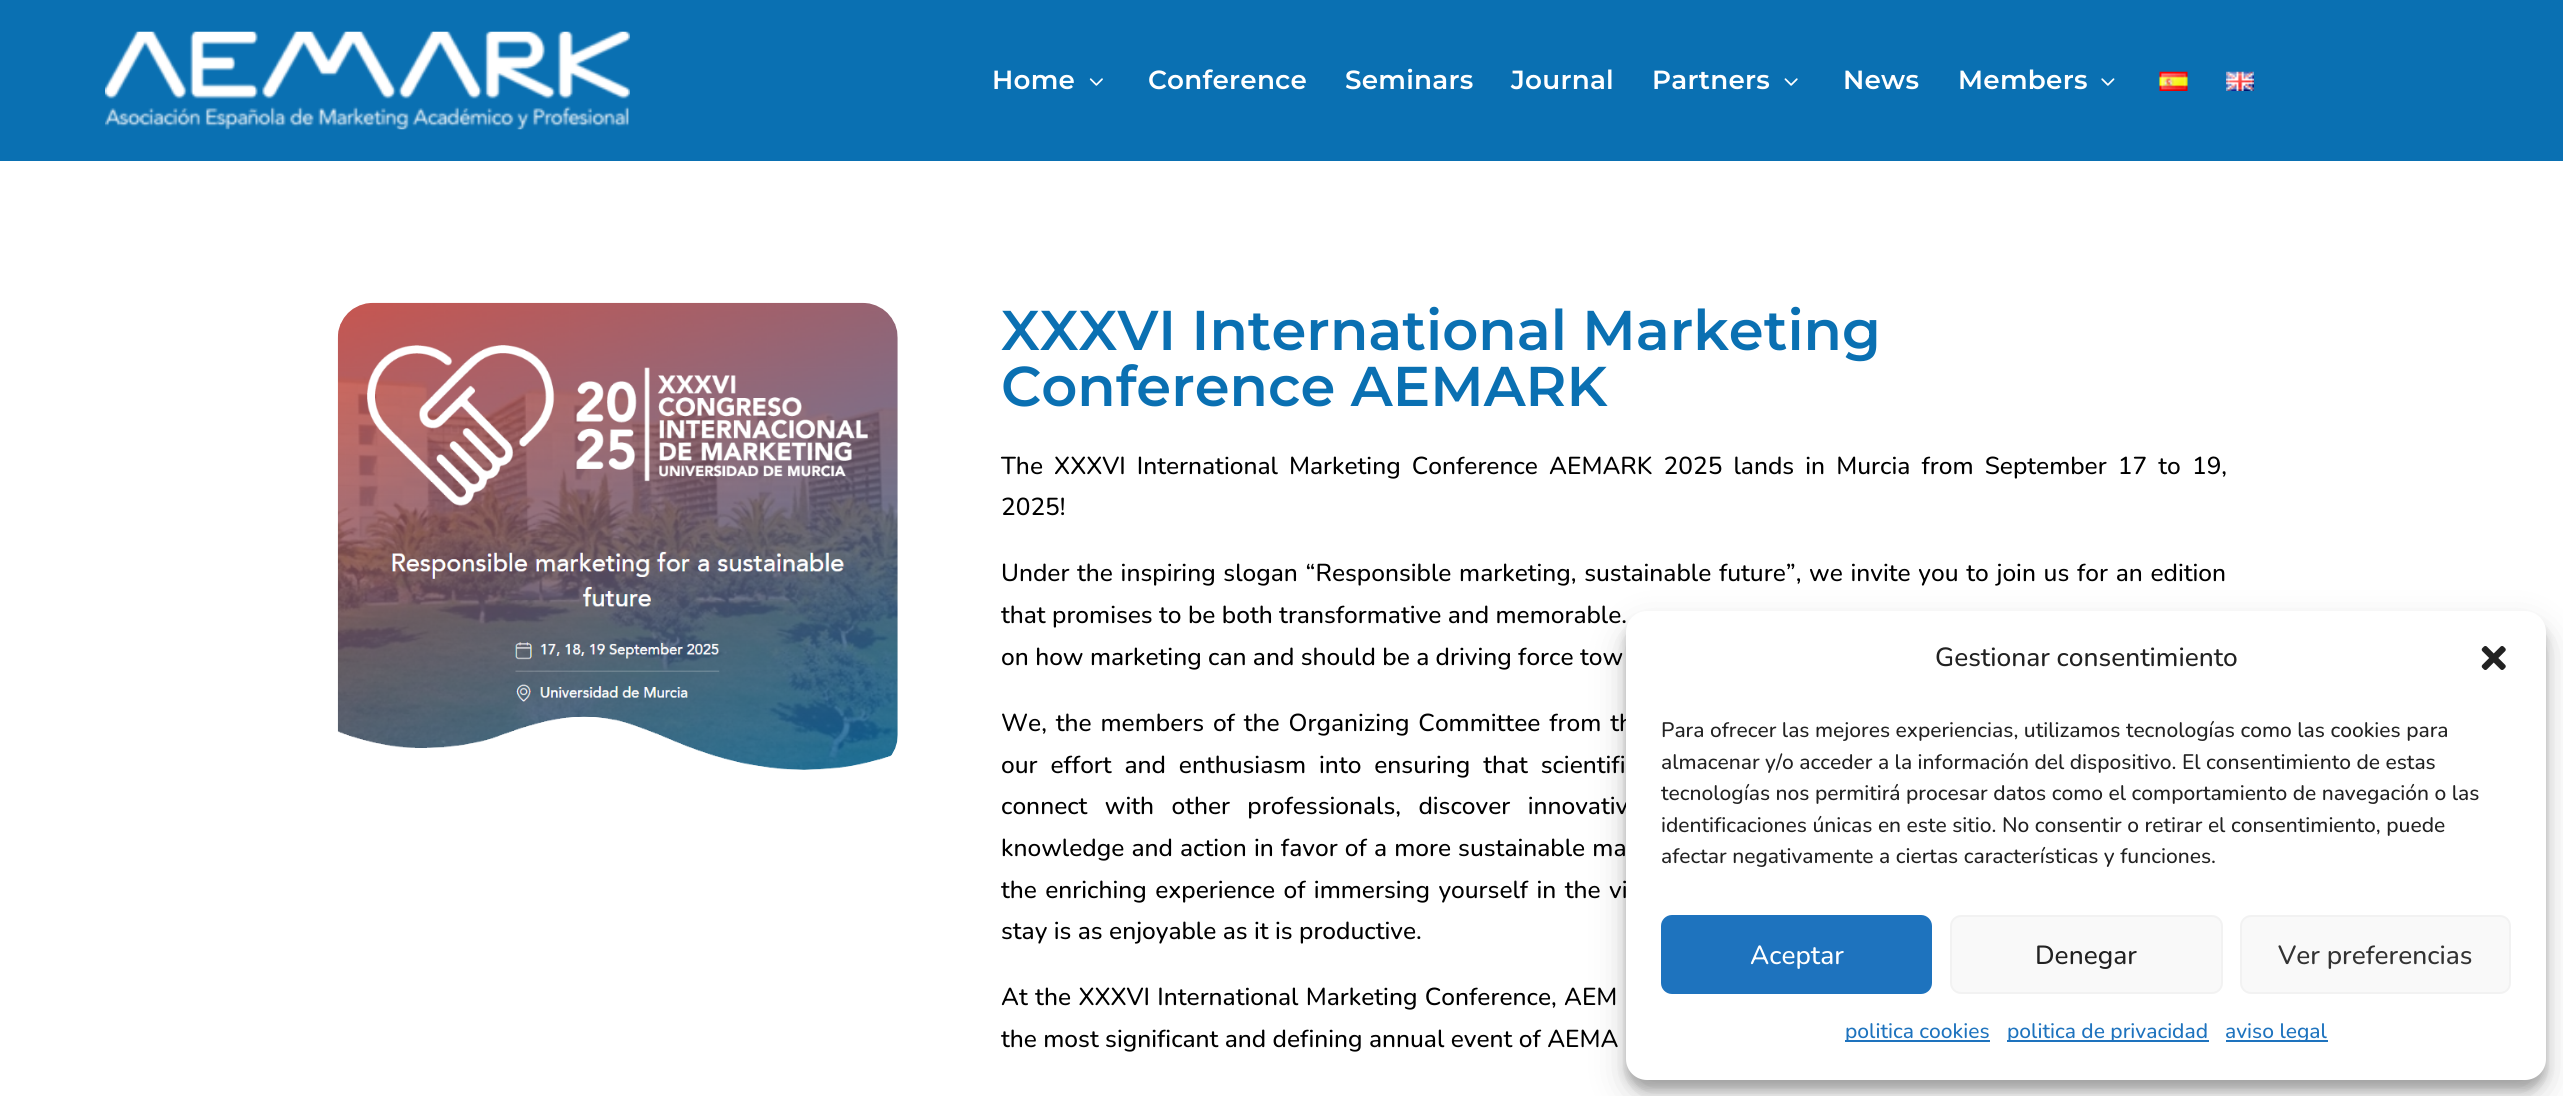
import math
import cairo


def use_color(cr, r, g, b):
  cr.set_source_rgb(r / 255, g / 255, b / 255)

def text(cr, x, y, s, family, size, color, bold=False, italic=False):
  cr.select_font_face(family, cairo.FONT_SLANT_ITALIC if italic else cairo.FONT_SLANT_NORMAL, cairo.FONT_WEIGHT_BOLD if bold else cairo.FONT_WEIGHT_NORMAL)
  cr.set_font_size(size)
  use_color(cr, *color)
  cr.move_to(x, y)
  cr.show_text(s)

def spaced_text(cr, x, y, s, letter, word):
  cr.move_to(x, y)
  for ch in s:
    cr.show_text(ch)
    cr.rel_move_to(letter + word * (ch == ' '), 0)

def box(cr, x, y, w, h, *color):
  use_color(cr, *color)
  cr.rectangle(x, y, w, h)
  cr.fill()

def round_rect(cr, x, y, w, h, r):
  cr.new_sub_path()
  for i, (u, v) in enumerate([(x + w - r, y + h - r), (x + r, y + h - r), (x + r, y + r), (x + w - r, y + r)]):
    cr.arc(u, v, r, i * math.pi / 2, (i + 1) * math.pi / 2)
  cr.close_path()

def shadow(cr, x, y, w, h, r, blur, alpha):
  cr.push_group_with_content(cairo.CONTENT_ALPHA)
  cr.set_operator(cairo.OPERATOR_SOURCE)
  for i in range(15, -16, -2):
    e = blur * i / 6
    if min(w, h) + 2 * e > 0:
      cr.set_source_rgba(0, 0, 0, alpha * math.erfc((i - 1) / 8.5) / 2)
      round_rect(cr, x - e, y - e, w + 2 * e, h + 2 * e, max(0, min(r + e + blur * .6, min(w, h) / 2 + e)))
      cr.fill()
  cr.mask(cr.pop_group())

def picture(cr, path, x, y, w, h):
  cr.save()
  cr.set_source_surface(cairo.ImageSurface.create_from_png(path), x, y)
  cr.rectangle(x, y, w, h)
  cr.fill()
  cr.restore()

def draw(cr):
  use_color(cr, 255, 255, 255)
  cr.paint()
  box(cr, 0, 0, 2563, 161, 10, 112, 178)
  picture(cr, "img_01.png", 105, 31, 525, 99)
  picture(cr, "img_02.png", 1089, 78, 14, 8)
  picture(cr, "img_03.png", 1784, 78, 14, 8)
  picture(cr, "img_04.png", 2101, 78, 14, 8)
  picture(cr, "img_05.png", 2159, 71, 29, 20)
  picture(cr, "img_06.png", 2226, 71, 28, 20)
  picture(cr, "img_07.png", 337, 302, 561, 468)
  use_color(cr, 0, 0, 0)
  shadow(cr, 1626, 621, 920, 469, 21, 5, 0.23)
  shadow(cr, 1626, 628, 920, 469, 21, 17.5, 0.19)
  cr.select_font_face("Montserrat SemiBold")
  cr.set_font_size(26.25)
  use_color(cr, 255, 255, 255)
  spaced_text(cr, 992, 89, "Home", 0.25, 0)
  spaced_text(cr, 1148, 89, "Conference", 0.25, 0)
  spaced_text(cr, 1345, 89, "Seminars", 0.25, 0)
  spaced_text(cr, 1511, 89, "Journal", 0.25, 0)
  spaced_text(cr, 1652, 89, "Partners", 0.25, 0)
  spaced_text(cr, 1843, 89, "News", 0.25, 0)
  spaced_text(cr, 1958, 89, "Members", 0.25, 0)
  text(cr, 1001, 350, "XXXVI International Marketing", "Montserrat SemiBold", 56, (10, 112, 178))
  text(cr, 1001, 406, "Conference AEMARK", "Montserrat SemiBold", 56, (10, 112, 178))
  cr.select_font_face("Nunito Medium")
  cr.set_font_size(24.5)
  use_color(cr, 0, 0, 0)
  spaced_text(cr, 1001, 474, "The XXXVI International Marketing Conference AEMARK 2025 lands in Murcia from September 17 to 19,", 0, 4.75)
  text(cr, 1001, 515, "2025!", "Nunito Medium", 24.5, (0, 0, 0))
  spaced_text(cr, 1001, 581, "Under the inspiring slogan “Responsible marketing, sustainable future”, we invite you to join us for an edition", 0, 1.3)
  text(cr, 1001, 623, "that promises to be both transformative and memorable.", "Nunito Medium", 24.5, (0, 0, 0))
  text(cr, 1001, 665, "on how marketing can and should be a driving force tow", "Nunito Medium", 24.5, (0, 0, 0))
  spaced_text(cr, 1001, 731, "We, the members of the Organizing Committee from th", 0, 2.5)
  spaced_text(cr, 1001, 773, "our effort and enthusiasm into ensuring that scientifi", 0, 6.5)
  spaced_text(cr, 1001, 814, "connect with other professionals, discover innovativ", 0, 11)
  spaced_text(cr, 1001, 856, "knowledge and action in favor of a more sustainable ma", 0, 0.75)
  spaced_text(cr, 1001, 898, "the enriching experience of immersing yourself in the vi", 0, 2)
  text(cr, 1001, 939, "stay is as enjoyable as it is productive.", "Nunito Medium", 24.5, (0, 0, 0))
  spaced_text(cr, 1001, 1005, "At the XXXVI International Marketing Conference, AEM", 0, 1)
  text(cr, 1001, 1047, "the most significant and defining annual event of AEMA", "Nunito Medium", 24.5, (0, 0, 0))
  use_color(cr, 255, 255, 255)
  round_rect(cr, 1626, 611, 920, 469, 21)
  cr.fill()
  text(cr, 1935, 666, "Gestionar consentimiento", "Nunito Medium", 26.25, (34, 34, 34))
  picture(cr, "img_08.png", 2481, 646, 25, 24)
  text(cr, 1661, 737, "Para ofrecer las mejores experiencias, utilizamos tecnologías como las cookies para", "Nunito Medium", 21, (34, 34, 34))
  text(cr, 1661, 769, "almacenar y/o acceder a la información del dispositivo. El consentimiento de estas", "Nunito Medium", 21, (34, 34, 34))
  text(cr, 1661, 800, "tecnologías nos permitirá procesar datos como el comportamiento de navegación o las", "Nunito Medium", 21, (34, 34, 34))
  text(cr, 1661, 832, "identificaciones únicas en este sitio. No consentir o retirar el consentimiento, puede", "Nunito Medium", 21, (34, 34, 34))
  text(cr, 1661, 863, "afectar negativamente a ciertas características y funciones.", "Nunito Medium", 21, (34, 34, 34))
  use_color(cr, 30, 115, 190)
  round_rect(cr, 1662, 916, 269, 77, 10)
  cr.fill_preserve()
  cr.stroke()
  text(cr, 1750, 964, "Aceptar", "Nunito Medium", 26.25, (255, 255, 255))
  use_color(cr, 249, 249, 249)
  round_rect(cr, 1951, 916, 271, 77, 10)
  cr.fill_preserve()
  use_color(cr, 242, 242, 242)
  cr.stroke()
  text(cr, 2035, 964, "Denegar", "Nunito Medium", 26.25, (34, 34, 34))
  use_color(cr, 249, 249, 249)
  round_rect(cr, 2241, 916, 269, 77, 10)
  cr.fill_preserve()
  use_color(cr, 242, 242, 242)
  cr.stroke()
  text(cr, 2278, 964, "Ver preferencias", "Nunito Medium", 26.25, (51, 51, 51))
  box(cr, 1845, 1040, 145, 2, 30, 115, 190)
  text(cr, 1845, 1038, "politica cookies", "Nunito Medium", 21, (30, 115, 190))
  box(cr, 2007, 1040, 202, 2, 30, 115, 190)
  text(cr, 2007, 1038, "politica de privacidad", "Nunito Medium", 21, (30, 115, 190))
  box(cr, 2226, 1040, 102, 2, 30, 115, 190)
  text(cr, 2225, 1038, "aviso legal", "Nunito Medium", 21, (30, 115, 190))


surface = cairo.ImageSurface(cairo.FORMAT_RGB24, 2563, 1096)
cr = cairo.Context(surface)
options = cairo.FontOptions()
options.set_hint_metrics(cairo.HINT_METRICS_OFF)
options.set_hint_style(cairo.HINT_STYLE_NONE)
cr.set_font_options(options)
cr.set_miter_limit(4)
draw(cr)
surface.write_to_png("out.png")
